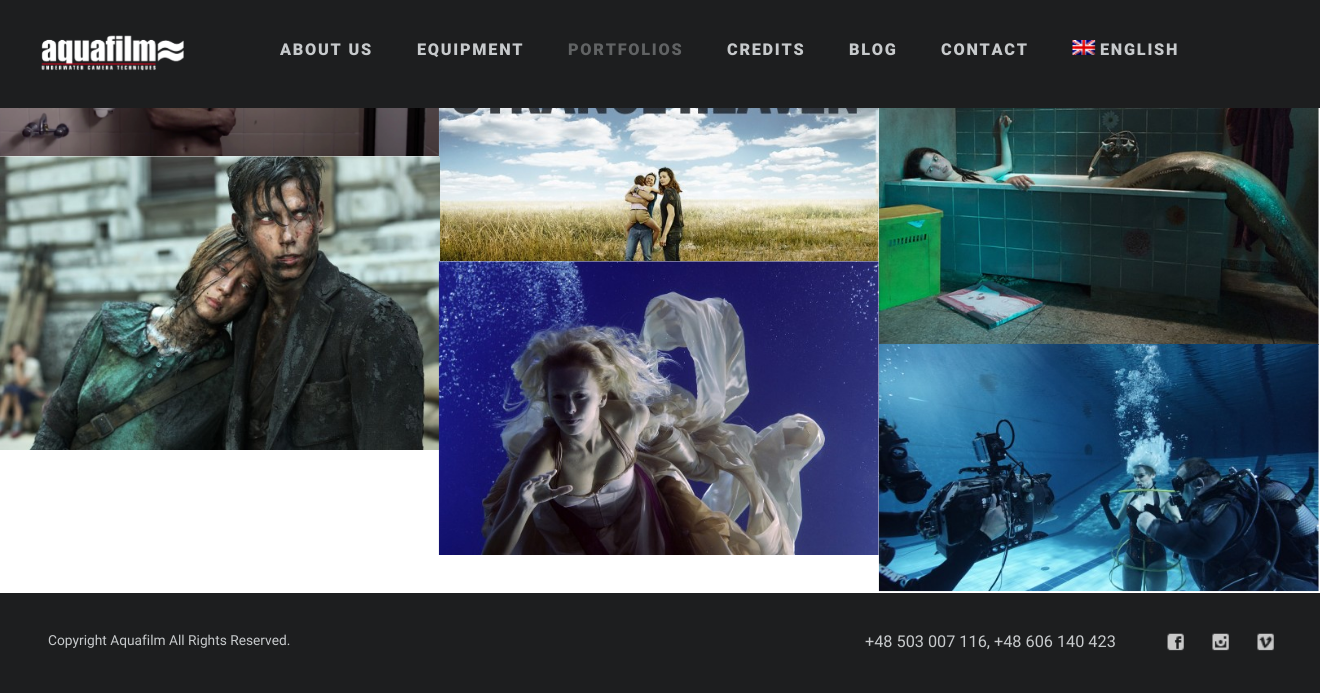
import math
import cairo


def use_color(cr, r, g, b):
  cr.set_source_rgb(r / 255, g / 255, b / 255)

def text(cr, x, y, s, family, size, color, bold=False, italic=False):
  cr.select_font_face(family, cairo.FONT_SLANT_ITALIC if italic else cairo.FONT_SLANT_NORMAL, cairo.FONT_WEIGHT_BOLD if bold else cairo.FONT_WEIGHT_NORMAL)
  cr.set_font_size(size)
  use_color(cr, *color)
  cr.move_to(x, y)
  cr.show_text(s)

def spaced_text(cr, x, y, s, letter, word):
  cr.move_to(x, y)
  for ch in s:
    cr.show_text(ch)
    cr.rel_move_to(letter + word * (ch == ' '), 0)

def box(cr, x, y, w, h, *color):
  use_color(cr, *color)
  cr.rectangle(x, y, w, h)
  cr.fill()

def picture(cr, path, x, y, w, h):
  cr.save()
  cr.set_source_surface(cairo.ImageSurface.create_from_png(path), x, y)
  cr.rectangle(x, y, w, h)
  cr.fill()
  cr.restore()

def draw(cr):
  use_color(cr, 255, 255, 255)
  cr.paint()
  box(cr, 0, 0, 1320, 108, 29, 30, 31)
  picture(cr, "img_01.png", 41, 35, 143, 36)
  picture(cr, "img_02.png", 1072, 40, 24, 15)
  picture(cr, "img_03.png", 0, 108, 439, 49)
  picture(cr, "img_04.png", 438, 108, 441, 154)
  picture(cr, "img_05.png", 878, 108, 441, 237)
  picture(cr, "img_06.png", 0, 156, 440, 294)
  picture(cr, "img_07.png", 438, 261, 441, 294)
  picture(cr, "img_08.png", 878, 343, 441, 249)
  box(cr, 0, 593, 1320, 100, 29, 30, 31)
  picture(cr, "img_09.png", 1167, 633, 17, 18)
  picture(cr, "img_10.png", 1212, 633, 17, 18)
  picture(cr, "img_11.png", 1257, 633, 17, 18)
  cr.select_font_face("Roboto Black")
  cr.set_font_size(16.25)
  use_color(cr, 199, 202, 204)
  spaced_text(cr, 280, 55, "ABOUT US", 1.75, 0)
  spaced_text(cr, 417, 55, "EQUIPMENT", 1.75, 0)
  use_color(cr, 97, 99, 100)
  spaced_text(cr, 568, 55, "PORTFOLIOS", 1.75, 0)
  use_color(cr, 199, 202, 204)
  spaced_text(cr, 727, 55, "CREDITS", 1.75, 0)
  spaced_text(cr, 849, 55, "BLOG", 1.75, 0)
  spaced_text(cr, 941, 55, "CONTACT", 1.75, 0)
  spaced_text(cr, 1100, 55, "ENGLISH", 1.75, 0)
  text(cr, 48, 645, "Copyright Aquafilm All Rights Reserved.", "Roboto", 13.75, (199, 202, 204))
  text(cr, 865, 647, "+48 503 007 116, +48 606 140 423", "Roboto", 16.25, (199, 202, 204))


surface = cairo.ImageSurface(cairo.FORMAT_RGB24, 1320, 693)
cr = cairo.Context(surface)
options = cairo.FontOptions()
options.set_hint_metrics(cairo.HINT_METRICS_OFF)
options.set_hint_style(cairo.HINT_STYLE_NONE)
cr.set_font_options(options)
cr.set_miter_limit(4)
draw(cr)
surface.write_to_png("out.png")
